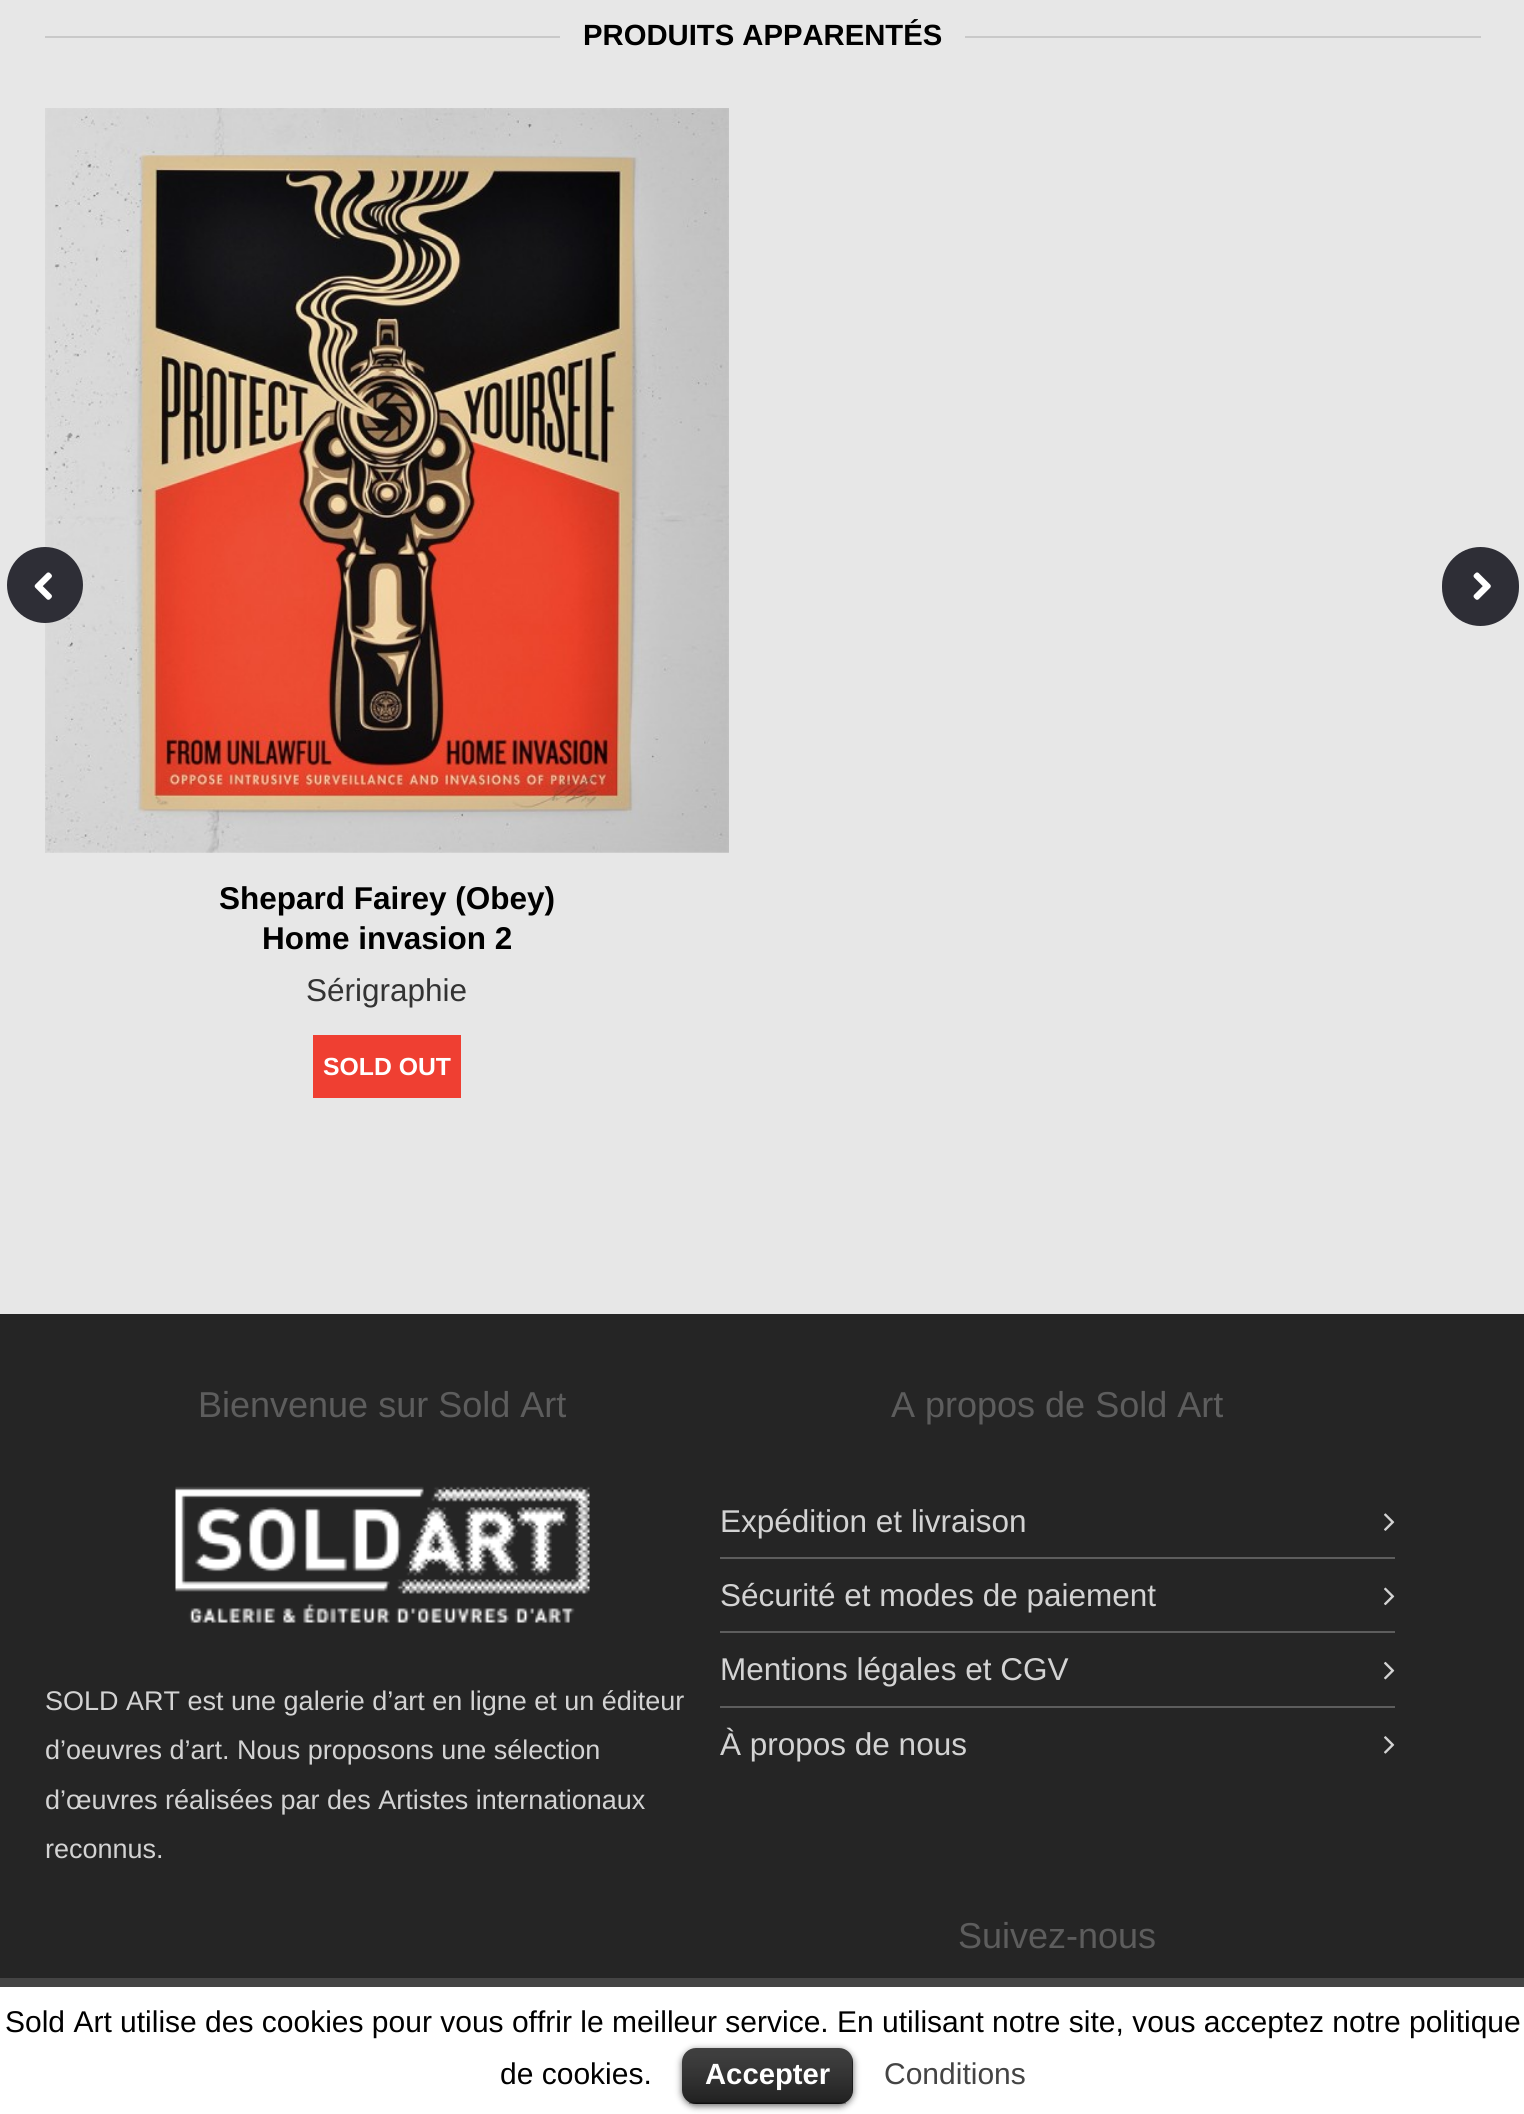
import math
import cairo


def use_color(cr, r, g, b):
  cr.set_source_rgb(r / 255, g / 255, b / 255)

def text(cr, x, y, s, family, size, color, bold=False, italic=False):
  cr.select_font_face(family, cairo.FONT_SLANT_ITALIC if italic else cairo.FONT_SLANT_NORMAL, cairo.FONT_WEIGHT_BOLD if bold else cairo.FONT_WEIGHT_NORMAL)
  cr.set_font_size(size)
  use_color(cr, *color)
  cr.move_to(x, y)
  cr.show_text(s)

def box(cr, x, y, w, h, *color):
  use_color(cr, *color)
  cr.rectangle(x, y, w, h)
  cr.fill()

def round_rect(cr, x, y, w, h, r):
  cr.new_sub_path()
  for i, (u, v) in enumerate([(x + w - r, y + h - r), (x + r, y + h - r), (x + r, y + r), (x + w - r, y + r)]):
    cr.arc(u, v, r, i * math.pi / 2, (i + 1) * math.pi / 2)
  cr.close_path()

def shadow(cr, x, y, w, h, r, blur, alpha):
  cr.push_group_with_content(cairo.CONTENT_ALPHA)
  cr.set_operator(cairo.OPERATOR_SOURCE)
  for i in range(15, -16, -2):
    e = blur * i / 6
    if min(w, h) + 2 * e > 0:
      cr.set_source_rgba(0, 0, 0, alpha * math.erfc((i - 1) / 8.5) / 2)
      round_rect(cr, x - e, y - e, w + 2 * e, h + 2 * e, max(0, min(r + e + blur * .6, min(w, h) / 2 + e)))
      cr.fill()
  cr.mask(cr.pop_group())

def picture(cr, path, x, y, w, h):
  cr.save()
  cr.set_source_surface(cairo.ImageSurface.create_from_png(path), x, y)
  cr.rectangle(x, y, w, h)
  cr.fill()
  cr.restore()

def draw(cr):
  use_color(cr, 37, 37, 37)
  cr.paint()
  box(cr, 0, 0, 1524, 1314, 231, 231, 231)
  box(cr, 45, 36, 1436, 2, 201, 201, 201)
  box(cr, 560, 36, 405, 2, 231, 231, 231)
  picture(cr, "img_03.png", 45, 108, 684, 745)
  use_color(cr, 46, 46, 54)
  cr.arc(45, 585, 38, 0, 2 * math.pi)
  cr.fill()
  picture(cr, "img_01.png", 34, 572, 18, 28)
  round_rect(cr, 1442, 547, 77, 79, 38.5)
  cr.fill()
  picture(cr, "img_02.png", 1473, 572, 18, 28)
  box(cr, 313, 1035, 148, 63, 239, 63, 50)
  picture(cr, "img_04.png", 175, 1486, 415, 137)
  picture(cr, "img_05.png", 1384, 1513, 11, 18)
  box(cr, 720, 1557, 675, 2, 93, 93, 93)
  picture(cr, "img_06.png", 1384, 1587, 11, 19)
  box(cr, 720, 1631, 675, 2, 93, 93, 93)
  picture(cr, "img_07.png", 1384, 1661, 11, 19)
  box(cr, 720, 1706, 675, 2, 93, 93, 93)
  picture(cr, "img_08.png", 1384, 1736, 11, 18)
  box(cr, 0, 1987, 1524, 127, 255, 255, 255)
  box(cr, 0, 1978, 1524, 9, 68, 68, 68)
  use_color(cr, 0, 0, 0)
  shadow(cr, 682, 2050, 171, 56, 14, 3.5, 0.6)
  use_color(cr, 0, 0, 0)
  round_rect(cr, 682, 2048, 171, 56, 14)
  cr.fill()
  picture(cr, "img_09.png", 682, 2048, 171, 56)
  cr.set_source_rgba(0, 0, 0, 0.25)
  cr.rectangle(689, 2102, 157, 2)
  cr.fill()
  text(cr, 583, 45, "PRODUITS APPARENTÉS", "Liberation Sans", 29.25, (0, 0, 0), bold=True)
  text(cr, 219, 909, "Shepard Fairey (Obey)", "Liberation Sans", 31.5, (0, 0, 0), bold=True)
  text(cr, 262, 949, "Home invasion 2", "Liberation Sans", 31.5, (0, 0, 0), bold=True)
  text(cr, 306, 1001, "Sérigraphie", "Liberation Sans", 31.5, (51, 51, 51))
  text(cr, 323, 1075, "SOLD OUT", "Liberation Sans", 24.75, (255, 255, 255), bold=True)
  text(cr, 198, 1417, "Bienvenue sur Sold Art", "Liberation Sans", 36, (93, 93, 93))
  text(cr, 45, 1710, "SOLD ART est une galerie d’art en ligne et un éditeur", "Liberation Sans", 27, (211, 211, 211))
  text(cr, 45, 1759, "d’oeuvres d’art. Nous proposons une sélection", "Liberation Sans", 27, (211, 211, 211))
  text(cr, 45, 1809, "d’œuvres réalisées par des Artistes internationaux", "Liberation Sans", 27, (211, 211, 211))
  text(cr, 45, 1858, "reconnus.", "Liberation Sans", 27, (211, 211, 211))
  text(cr, 891, 1417, "A propos de Sold Art", "Liberation Sans", 36, (93, 93, 93))
  text(cr, 720, 1532, "Expédition et livraison", "Liberation Sans", 31.5, (211, 211, 211))
  text(cr, 720, 1606, "Sécurité et modes de paiement", "Liberation Sans", 31.5, (211, 211, 211))
  text(cr, 720, 1680, "Mentions légales et CGV", "Liberation Sans", 31.5, (211, 211, 211))
  text(cr, 720, 1755, "À propos de nous", "Liberation Sans", 31.5, (211, 211, 211))
  text(cr, 958, 1948, "Suivez-nous", "Liberation Sans", 36, (93, 93, 93))
  text(cr, 5, 2032, "Sold Art utilise des cookies pour vous offrir le meilleur service. En utilisant notre site, vous acceptez notre politique", "Liberation Sans", 30, (0, 0, 0))
  text(cr, 500, 2084, "de cookies.", "Liberation Sans", 30, (0, 0, 0))
  text(cr, 705, 2084, "Accepter", "Liberation Sans", 29.25, (255, 255, 255), bold=True)
  text(cr, 884, 2084, "Conditions", "Liberation Sans", 30, (68, 68, 68))


surface = cairo.ImageSurface(cairo.FORMAT_RGB24, 1524, 2114)
cr = cairo.Context(surface)
options = cairo.FontOptions()
options.set_hint_metrics(cairo.HINT_METRICS_OFF)
options.set_hint_style(cairo.HINT_STYLE_NONE)
cr.set_font_options(options)
cr.set_miter_limit(4)
draw(cr)
surface.write_to_png("out.png")
